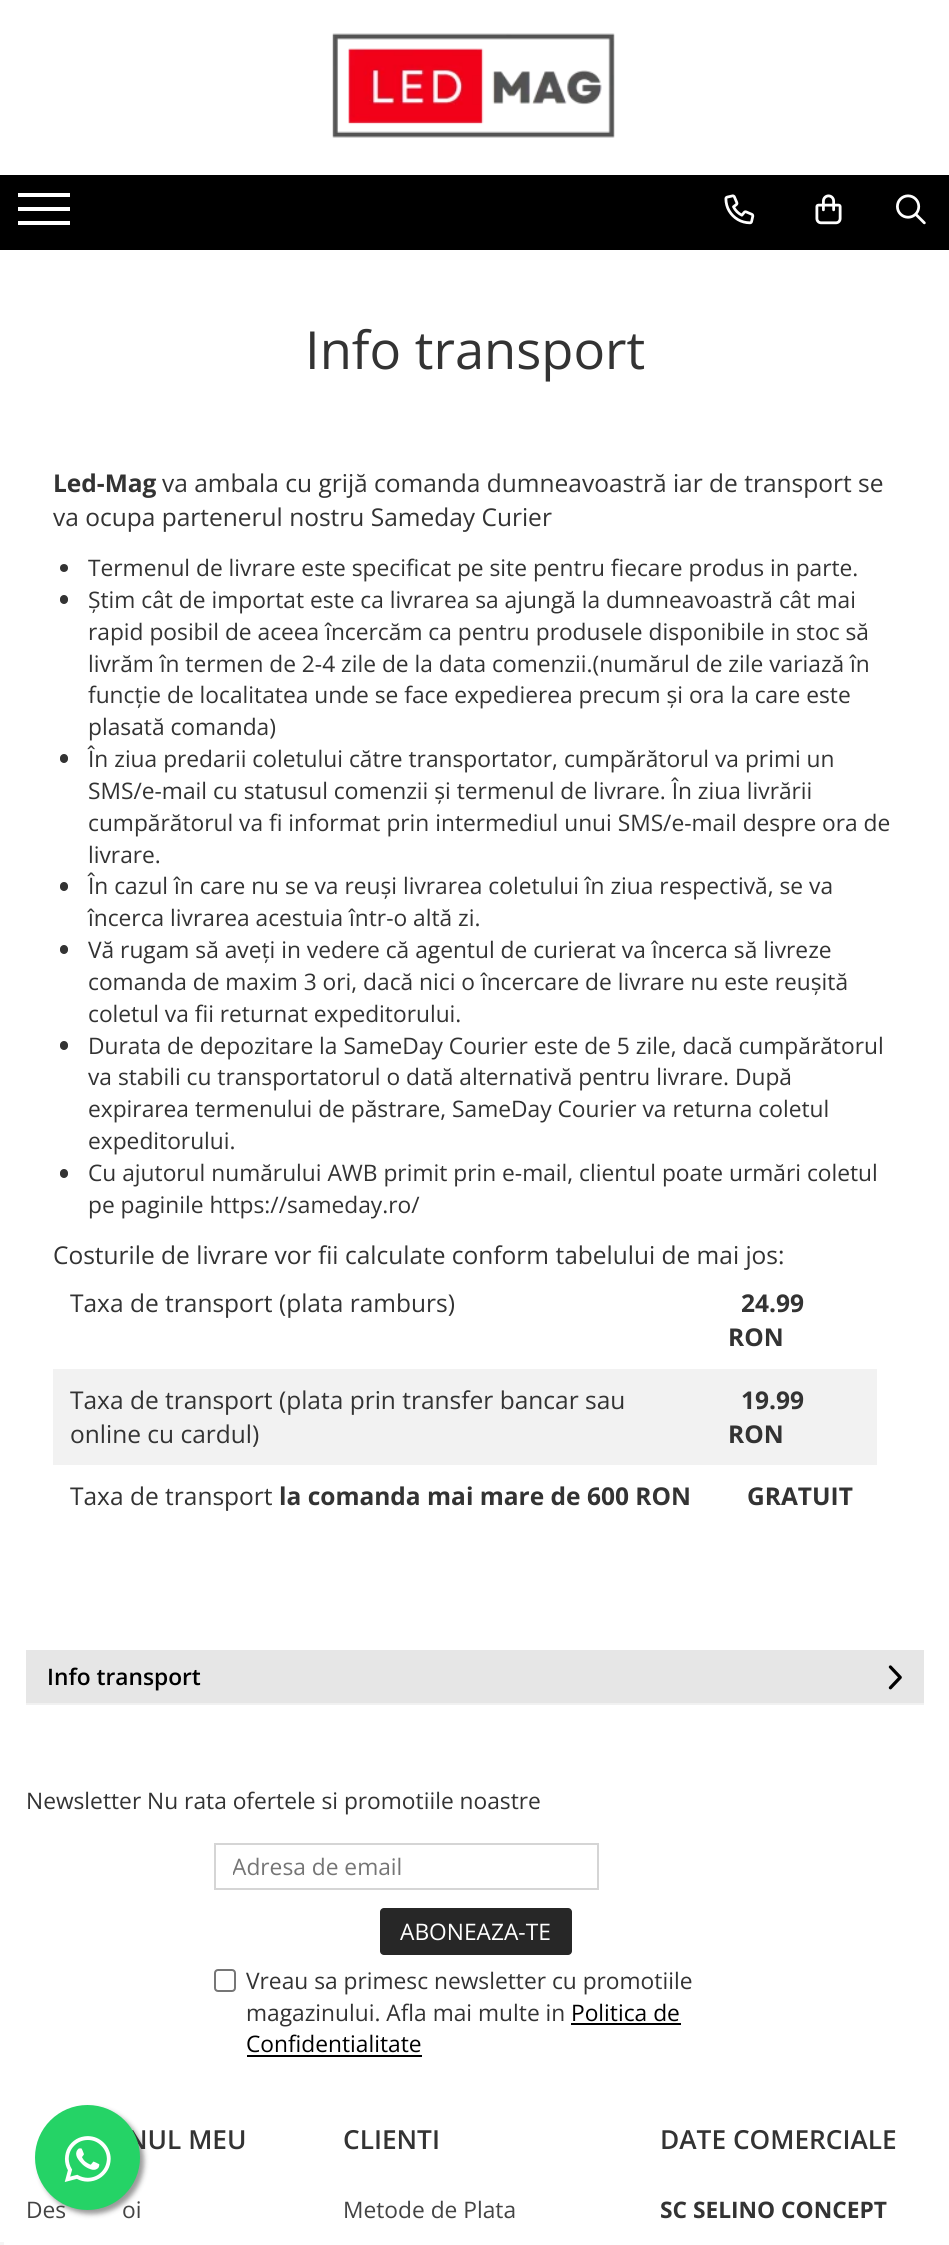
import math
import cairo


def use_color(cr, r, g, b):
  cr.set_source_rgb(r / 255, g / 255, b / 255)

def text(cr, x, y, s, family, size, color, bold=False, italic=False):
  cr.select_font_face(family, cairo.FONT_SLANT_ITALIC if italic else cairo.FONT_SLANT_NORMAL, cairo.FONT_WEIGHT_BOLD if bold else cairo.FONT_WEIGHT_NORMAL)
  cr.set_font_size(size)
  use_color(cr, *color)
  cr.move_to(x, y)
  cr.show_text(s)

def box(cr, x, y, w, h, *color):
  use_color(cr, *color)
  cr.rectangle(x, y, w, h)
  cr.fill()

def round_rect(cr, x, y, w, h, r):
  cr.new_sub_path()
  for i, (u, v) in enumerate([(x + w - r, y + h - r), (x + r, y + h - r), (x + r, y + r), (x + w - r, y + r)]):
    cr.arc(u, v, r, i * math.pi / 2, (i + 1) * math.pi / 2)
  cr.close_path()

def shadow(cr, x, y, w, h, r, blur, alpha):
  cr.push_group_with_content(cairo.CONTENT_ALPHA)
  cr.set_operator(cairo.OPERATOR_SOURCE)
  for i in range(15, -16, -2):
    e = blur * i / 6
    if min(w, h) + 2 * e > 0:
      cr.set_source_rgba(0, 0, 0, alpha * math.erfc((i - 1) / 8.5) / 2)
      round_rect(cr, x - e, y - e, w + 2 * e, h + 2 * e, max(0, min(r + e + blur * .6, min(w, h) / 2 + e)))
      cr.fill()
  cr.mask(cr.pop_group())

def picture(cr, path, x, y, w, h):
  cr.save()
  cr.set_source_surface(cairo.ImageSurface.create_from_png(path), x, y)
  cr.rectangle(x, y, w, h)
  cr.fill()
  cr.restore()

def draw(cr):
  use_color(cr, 255, 255, 255)
  cr.paint()
  picture(cr, "img_01.png", 332, 33, 283, 105)
  box(cr, 0, 175, 949, 75, 0, 0, 0)
  box(cr, 18, 207, 52, 4, 255, 255, 255)
  box(cr, 18, 193, 52, 4, 255, 255, 255)
  box(cr, 18, 221, 52, 4, 255, 255, 255)
  picture(cr, "img_02.png", 724, 194, 31, 31)
  picture(cr, "img_03.png", 815, 194, 27, 31)
  picture(cr, "img_04.png", 896, 194, 30, 31)
  use_color(cr, 51, 51, 51)
  cr.arc(64, 568, 4, 0, 2 * math.pi)
  cr.fill()
  round_rect(cr, 60, 595, 8, 9, 4)
  cr.fill()
  round_rect(cr, 60, 754, 8, 9, 4)
  cr.fill()
  round_rect(cr, 60, 882, 8, 9, 4)
  cr.fill()
  round_rect(cr, 60, 945, 8, 9, 4)
  cr.fill()
  round_rect(cr, 60, 1041, 8, 9, 4)
  cr.fill()
  round_rect(cr, 60, 1169, 8, 9, 4)
  cr.fill()
  box(cr, 53, 1369, 824, 96, 242, 242, 242)
  box(cr, 26, 1650, 898, 53, 230, 230, 230)
  box(cr, 26, 1703, 898, 2, 241, 241, 241)
  picture(cr, "img_05.png", 888, 1665, 14, 25)
  cr.rectangle(215, 1844, 383, 45)
  use_color(cr, 213, 213, 213)
  cr.stroke()
  use_color(cr, 39, 39, 39)
  round_rect(cr, 380, 1908, 192, 47, 4)
  cr.fill()
  round_rect(cr, 215, 1970, 20, 21, 3)
  use_color(cr, 118, 118, 118)
  cr.stroke()
  box(cr, 571, 2023, 110, 2, 0, 0, 0)
  box(cr, 247, 2055, 175, 2, 0, 0, 0)
  use_color(cr, 153, 153, 153)
  shadow(cr, 39, 2109, 105, 105, 52.5, 2.5, 1)
  box(cr, 0, 2242, 4, 3, 245, 245, 245)
  text(cr, 305, 369, "Info transport", "Open Sans", 52.5, (51, 51, 51))
  text(cr, 53, 492, "Led-Mag", "Open Sans", 24.5, (51, 51, 51), bold=True)
  text(cr, 162, 492, "va ambala cu grijă comanda dumneavoastră iar de transport se", "Open Sans", 24.5, (51, 51, 51))
  text(cr, 53, 526, "va ocupa partenerul nostru Sameday Curier", "Open Sans", 24.5, (51, 51, 51))
  text(cr, 88, 576, "Termenul de livrare este specificat pe site pentru fiecare produs in parte.", "Open Sans", 22.75, (51, 51, 51))
  text(cr, 88, 608, "Știm cât de importat este ca livrarea sa ajungă la dumneavoastră cât mai", "Open Sans", 22.75, (51, 51, 51))
  text(cr, 88, 640, "rapid posibil de aceea încercăm ca pentru produsele disponibile in stoc să", "Open Sans", 22.75, (51, 51, 51))
  text(cr, 88, 672, "livrăm în termen de 2-4 zile de la data comenzii.(numărul de zile variază în", "Open Sans", 22.75, (51, 51, 51))
  text(cr, 88, 703, "funcție de localitatea unde se face expedierea precum și ora la care este", "Open Sans", 22.75, (51, 51, 51))
  text(cr, 88, 735, "plasată comanda)", "Open Sans", 22.75, (51, 51, 51))
  text(cr, 88, 767, "În ziua predarii coletului către transportator, cumpărătorul va primi un", "Open Sans", 22.75, (51, 51, 51))
  text(cr, 88, 799, "SMS/e-mail cu statusul comenzii și termenul de livrare. În ziua livrării", "Open Sans", 22.75, (51, 51, 51))
  text(cr, 88, 831, "cumpărătorul va fi informat prin intermediul unui SMS/e-mail despre ora de", "Open Sans", 22.75, (51, 51, 51))
  text(cr, 88, 863, "livrare.", "Open Sans", 22.75, (51, 51, 51))
  text(cr, 88, 894, "În cazul în care nu se va reuși livrarea coletului în ziua respectivă, se va", "Open Sans", 22.75, (51, 51, 51))
  text(cr, 88, 926, "încerca livrarea acestuia într-o altă zi.", "Open Sans", 22.75, (51, 51, 51))
  text(cr, 88, 958, "Vă rugam să aveți in vedere că agentul de curierat va încerca să livreze", "Open Sans", 22.75, (51, 51, 51))
  text(cr, 88, 990, "comanda de maxim 3 ori, dacă nici o încercare de livrare nu este reușită", "Open Sans", 22.75, (51, 51, 51))
  text(cr, 88, 1022, "coletul va fii returnat expeditorului.", "Open Sans", 22.75, (51, 51, 51))
  text(cr, 88, 1054, "Durata de depozitare la SameDay Courier este de 5 zile, dacă cumpărătorul", "Open Sans", 22.75, (51, 51, 51))
  text(cr, 88, 1085, "va stabili cu transportatorul o dată alternativă pentru livrare. După", "Open Sans", 22.75, (51, 51, 51))
  text(cr, 88, 1117, "expirarea termenului de păstrare, SameDay Courier va returna coletul", "Open Sans", 22.75, (51, 51, 51))
  text(cr, 88, 1149, "expeditorului.", "Open Sans", 22.75, (51, 51, 51))
  text(cr, 88, 1181, "Cu ajutorul numărului AWB primit prin e-mail, clientul poate urmări coletul", "Open Sans", 22.75, (51, 51, 51))
  text(cr, 88, 1213, "pe paginile https://sameday.ro/", "Open Sans", 22.75, (51, 51, 51))
  text(cr, 53, 1264, "Costurile de livrare vor fii calculate conform tabelului de mai jos:", "Open Sans", 24.5, (51, 51, 51))
  text(cr, 70, 1312, "Taxa de transport (plata ramburs)", "Open Sans", 24.5, (51, 51, 51))
  text(cr, 741, 1312, "24.99", "Open Sans", 24.5, (51, 51, 51), bold=True)
  text(cr, 728, 1346, "RON", "Open Sans", 24.5, (51, 51, 51), bold=True)
  text(cr, 70, 1409, "Taxa de transport (plata prin transfer bancar sau", "Open Sans", 24.5, (51, 51, 51))
  text(cr, 70, 1443, "online cu cardul)", "Open Sans", 24.5, (51, 51, 51))
  text(cr, 741, 1409, "19.99", "Open Sans", 24.5, (51, 51, 51), bold=True)
  text(cr, 728, 1443, "RON", "Open Sans", 24.5, (51, 51, 51), bold=True)
  text(cr, 70, 1505, "Taxa de transport", "Open Sans", 24.5, (51, 51, 51))
  text(cr, 279, 1505, "la comanda mai mare de 600 RON", "Open Sans", 24.5, (51, 51, 51), bold=True)
  text(cr, 747, 1505, "GRATUIT", "Open Sans", 24.5, (51, 51, 51), bold=True)
  text(cr, 47, 1685, "Info transport", "Open Sans SemiBold", 22.75, (0, 0, 0))
  text(cr, 26, 1809, "Newsletter Nu rata ofertele si promotiile noastre", "Open Sans", 22.75, (51, 51, 51))
  cr.save()
  cr.rectangle(233, 1850, 360, 31)
  cr.clip()
  text(cr, 232, 1875, "Adresa de email", "Open Sans", 22.75, (117, 117, 117))
  cr.restore()
  text(cr, 400, 1940, "ABONEAZA-TE", "Open Sans", 22.75, (255, 255, 255))
  text(cr, 246, 1989, "Vreau sa primesc newsletter cu promotiile", "Open Sans", 22.75, (51, 51, 51))
  text(cr, 246, 2021, "magazinului. Afla mai multe in", "Open Sans", 22.75, (51, 51, 51))
  text(cr, 571, 2021, "Politica de", "Open Sans", 22.75, (0, 0, 0))
  text(cr, 246, 2052, "Confidentialitate", "Open Sans", 22.75, (0, 0, 0))
  text(cr, 127, 2149, "NUL MEU", "Open Sans SemiBold", 26.25, (51, 51, 51))
  text(cr, 26, 2218, "Des", "Open Sans", 22.75, (68, 68, 68))
  text(cr, 122, 2218, "oi", "Open Sans", 22.75, (68, 68, 68))
  text(cr, 343, 2149, "CLIENTI", "Open Sans SemiBold", 26.25, (51, 51, 51))
  text(cr, 343, 2218, "Metode de Plata", "Open Sans", 22.75, (68, 68, 68))
  text(cr, 660, 2149, "DATE COMERCIALE", "Open Sans SemiBold", 26.25, (51, 51, 51))
  text(cr, 660, 2218, "SC SELINO CONCEPT", "Open Sans", 22.75, (51, 51, 51), bold=True)
  use_color(cr, 37, 211, 102)
  cr.new_path()
  cr.arc(87.5, 2157.5, 52.5, 0, 2 * math.pi)
  cr.fill()
  picture(cr, "img_06.png", 64, 2136, 47, 46)


surface = cairo.ImageSurface(cairo.FORMAT_RGB24, 949, 2245)
cr = cairo.Context(surface)
options = cairo.FontOptions()
options.set_hint_metrics(cairo.HINT_METRICS_OFF)
options.set_hint_style(cairo.HINT_STYLE_NONE)
cr.set_font_options(options)
cr.set_miter_limit(4)
draw(cr)
surface.write_to_png("out.png")
